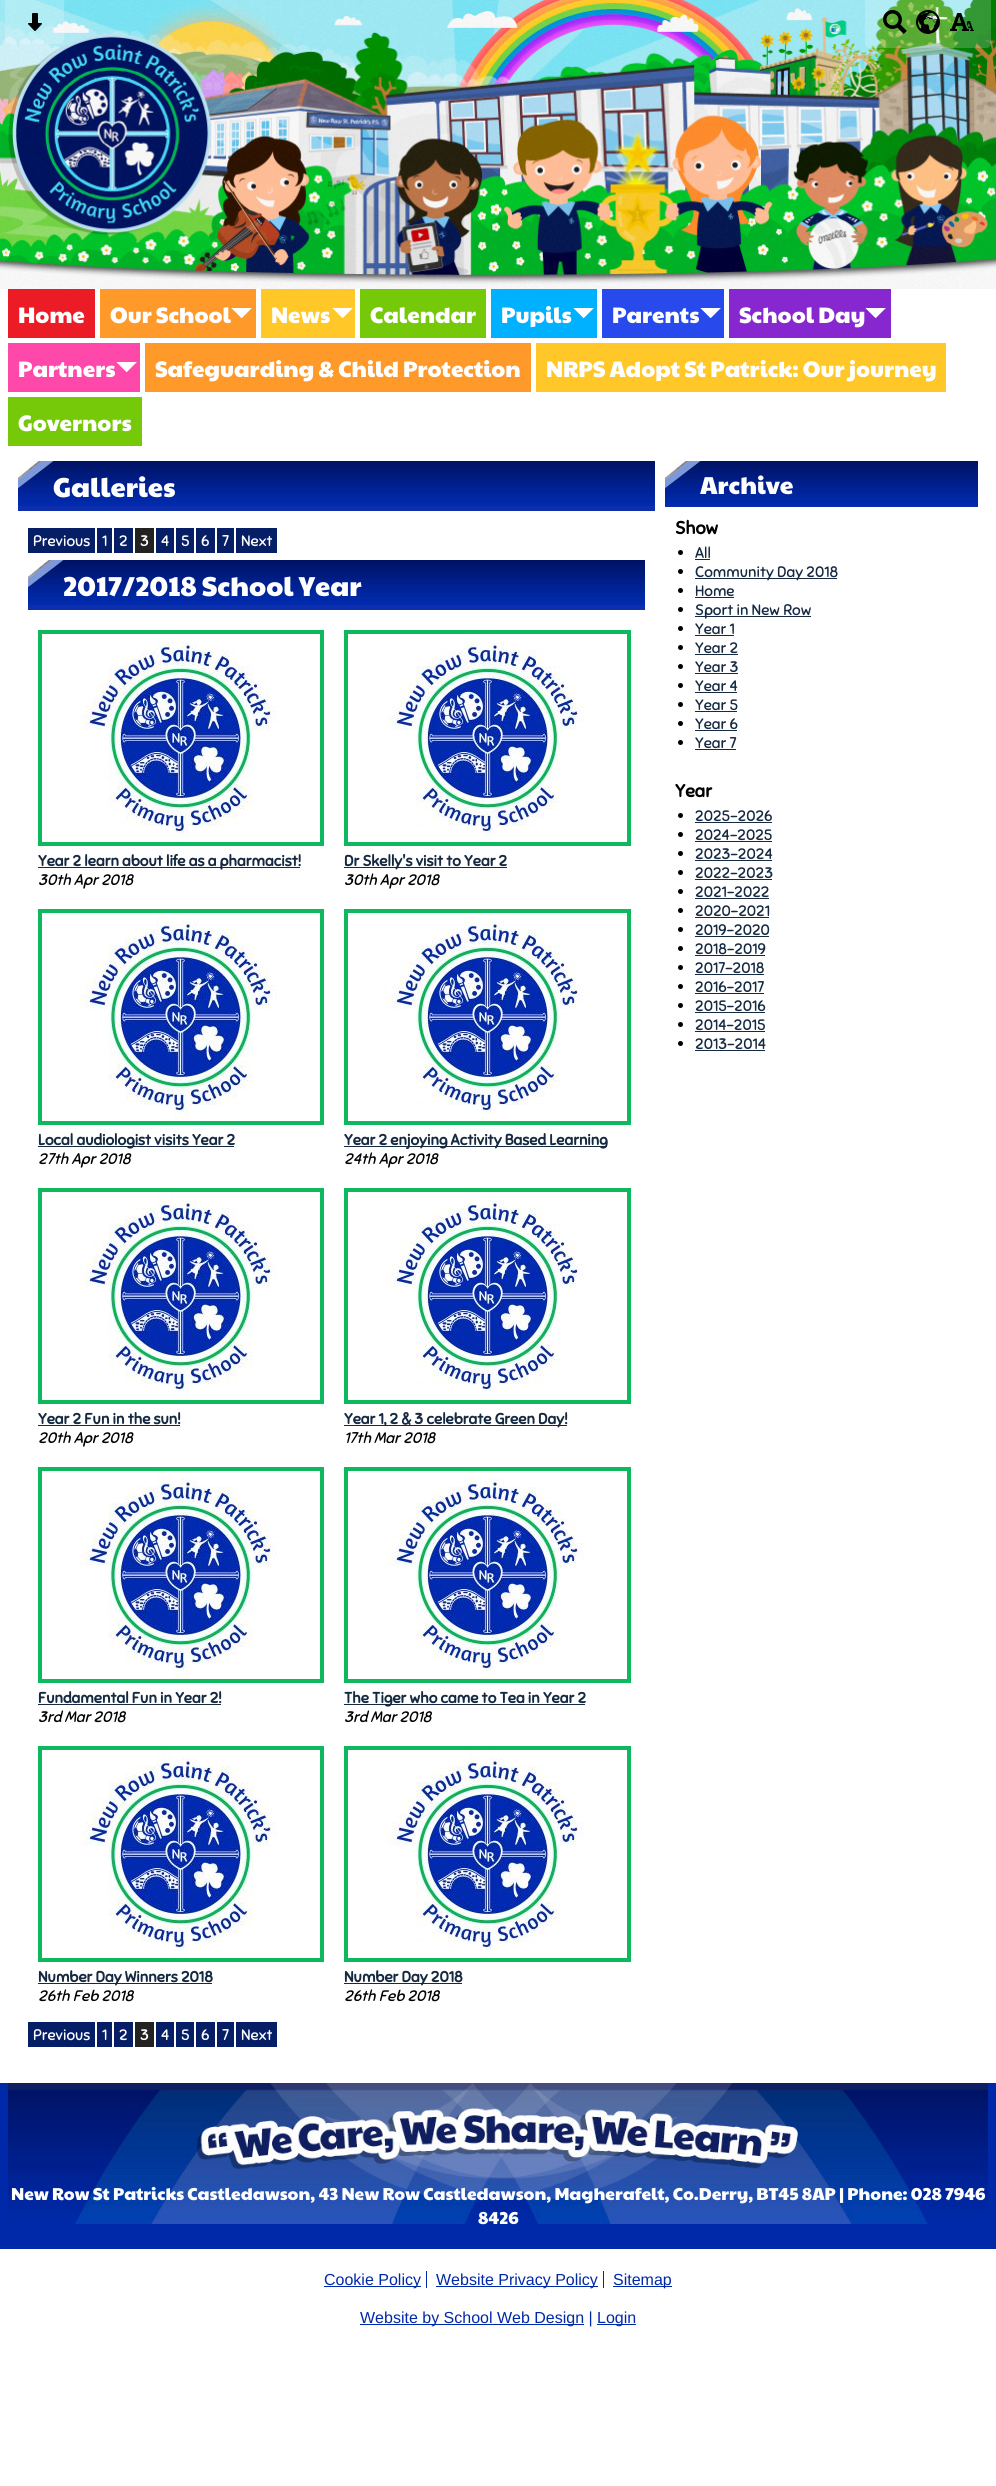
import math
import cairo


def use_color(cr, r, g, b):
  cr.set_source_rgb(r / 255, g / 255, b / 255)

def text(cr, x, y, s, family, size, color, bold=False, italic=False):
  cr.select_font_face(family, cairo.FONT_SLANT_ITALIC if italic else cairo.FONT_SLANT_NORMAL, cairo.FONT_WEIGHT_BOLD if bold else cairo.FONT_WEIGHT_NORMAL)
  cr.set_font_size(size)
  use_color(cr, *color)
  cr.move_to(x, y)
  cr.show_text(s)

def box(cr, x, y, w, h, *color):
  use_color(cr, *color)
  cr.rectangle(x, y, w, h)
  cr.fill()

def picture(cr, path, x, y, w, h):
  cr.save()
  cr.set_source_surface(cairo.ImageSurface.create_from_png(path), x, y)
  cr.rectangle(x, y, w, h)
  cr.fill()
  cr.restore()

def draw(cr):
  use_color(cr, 255, 255, 255)
  cr.paint()
  picture(cr, "img_01.png", 0, 0, 996, 289)
  cr.set_source_rgba(1, 1, 1, 0.2)
  cr.new_path()
  cr.move_to(5, 0)
  cr.line_to(64, 0)
  cr.line_to(64, 39)
  cr.curve_to(64, 42, 62, 44, 59, 44)
  cr.line_to(10, 44)
  cr.curve_to(7, 44, 5, 42, 5, 39)
  cr.close_path()
  cr.fill()
  picture(cr, "img_02.png", 28, 13, 14, 18)
  cr.new_path()
  cr.move_to(865, 0)
  cr.line_to(991, 0)
  cr.line_to(991, 43)
  cr.curve_to(991, 46, 989, 48, 986, 48)
  cr.line_to(870, 48)
  cr.curve_to(867, 48, 865, 46, 865, 43)
  cr.close_path()
  cr.fill()
  picture(cr, "img_03.png", 883, 10, 24, 24)
  picture(cr, "img_04.png", 916, 10, 24, 24)
  picture(cr, "img_05.png", 950, 13, 24, 18)
  box(cr, 8, 289, 87, 49, 235, 28, 38)
  box(cr, 100, 289, 156, 49, 255, 153, 42)
  picture(cr, "img_06.png", 231, 308, 21, 10)
  box(cr, 261, 289, 94, 49, 255, 199, 40)
  picture(cr, "img_07.png", 332, 308, 21, 10)
  box(cr, 360, 289, 126, 49, 118, 201, 9)
  box(cr, 491, 289, 106, 49, 0, 177, 255)
  picture(cr, "img_08.png", 573, 308, 21, 10)
  box(cr, 602, 289, 122, 49, 40, 73, 236)
  picture(cr, "img_09.png", 700, 308, 21, 10)
  box(cr, 729, 289, 162, 49, 135, 39, 207)
  picture(cr, "img_10.png", 865, 308, 21, 10)
  box(cr, 8, 343, 132, 49, 254, 73, 170)
  picture(cr, "img_11.png", 116, 362, 21, 10)
  box(cr, 145, 343, 386, 49, 255, 153, 42)
  box(cr, 536, 343, 410, 49, 255, 199, 40)
  box(cr, 8, 397, 134, 49, 118, 201, 9)
  box(cr, 18, 506, 637, 5, 13, 47, 171)
  picture(cr, "img_12.png", 18, 461, 637, 45)
  box(cr, 28, 528, 67, 25, 6, 30, 102)
  box(cr, 97, 528, 15, 25, 6, 30, 102)
  box(cr, 114, 528, 19, 25, 6, 30, 102)
  box(cr, 135, 528, 19, 25, 34, 34, 34)
  box(cr, 156, 528, 18, 25, 6, 30, 102)
  box(cr, 176, 528, 18, 25, 6, 30, 102)
  box(cr, 196, 528, 19, 25, 6, 30, 102)
  box(cr, 217, 528, 17, 25, 6, 30, 102)
  box(cr, 236, 528, 41, 25, 6, 30, 102)
  box(cr, 28, 605, 617, 5, 13, 47, 171)
  picture(cr, "img_13.png", 28, 560, 617, 45)
  cr.rectangle(40, 632, 282, 212)
  use_color(cr, 14, 184, 95)
  cr.set_line_width(4)
  cr.stroke()
  picture(cr, "img_14.png", 77, 634, 200, 208)
  box(cr, 38, 867, 262, 1, 21, 41, 65)
  cr.rectangle(346, 632, 283, 212)
  use_color(cr, 14, 184, 95)
  cr.stroke()
  picture(cr, "img_14.png", 384, 634, 200, 208)
  box(cr, 344, 867, 163, 1, 21, 41, 65)
  cr.rectangle(40, 911, 282, 212)
  use_color(cr, 14, 184, 95)
  cr.stroke()
  picture(cr, "img_14.png", 77, 913, 200, 208)
  box(cr, 38, 1146, 196, 1, 21, 41, 65)
  cr.rectangle(346, 911, 283, 212)
  use_color(cr, 14, 184, 95)
  cr.stroke()
  picture(cr, "img_14.png", 384, 913, 200, 208)
  box(cr, 344, 1146, 263, 1, 21, 41, 65)
  cr.rectangle(40, 1190, 282, 212)
  use_color(cr, 14, 184, 95)
  cr.stroke()
  picture(cr, "img_14.png", 77, 1192, 200, 208)
  box(cr, 38, 1425, 142, 1, 21, 41, 65)
  cr.rectangle(346, 1190, 283, 212)
  use_color(cr, 14, 184, 95)
  cr.stroke()
  picture(cr, "img_14.png", 384, 1192, 200, 208)
  box(cr, 344, 1425, 223, 1, 21, 41, 65)
  cr.rectangle(40, 1469, 282, 212)
  use_color(cr, 14, 184, 95)
  cr.stroke()
  picture(cr, "img_14.png", 77, 1471, 200, 208)
  box(cr, 38, 1704, 183, 1, 21, 41, 65)
  cr.rectangle(346, 1469, 283, 212)
  use_color(cr, 14, 184, 95)
  cr.stroke()
  picture(cr, "img_14.png", 384, 1471, 200, 208)
  box(cr, 344, 1704, 241, 1, 21, 41, 65)
  cr.rectangle(40, 1748, 282, 212)
  use_color(cr, 14, 184, 95)
  cr.stroke()
  picture(cr, "img_14.png", 77, 1750, 200, 208)
  box(cr, 38, 1983, 174, 1, 21, 41, 65)
  cr.rectangle(346, 1748, 283, 212)
  use_color(cr, 14, 184, 95)
  cr.stroke()
  picture(cr, "img_14.png", 384, 1750, 200, 208)
  box(cr, 344, 1983, 118, 1, 21, 41, 65)
  box(cr, 28, 2022, 67, 25, 6, 30, 102)
  box(cr, 97, 2022, 15, 25, 6, 30, 102)
  box(cr, 114, 2022, 19, 25, 6, 30, 102)
  box(cr, 135, 2022, 19, 25, 34, 34, 34)
  box(cr, 156, 2022, 18, 25, 6, 30, 102)
  box(cr, 176, 2022, 18, 25, 6, 30, 102)
  box(cr, 196, 2022, 19, 25, 6, 30, 102)
  box(cr, 217, 2022, 17, 25, 6, 30, 102)
  box(cr, 236, 2022, 41, 25, 6, 30, 102)
  box(cr, 665, 506, 313, 1, 13, 47, 171)
  picture(cr, "img_15.png", 665, 461, 313, 45)
  use_color(cr, 0, 0, 0)
  cr.arc(680.5, 552.5, 2.5, 0, 2 * math.pi)
  cr.fill()
  box(cr, 695, 559, 15, 1, 21, 41, 65)
  use_color(cr, 0, 0, 0)
  cr.arc(680.5, 571.5, 2.5, 0, 2 * math.pi)
  cr.fill()
  box(cr, 695, 578, 142, 1, 21, 41, 65)
  use_color(cr, 0, 0, 0)
  cr.arc(680.5, 590.5, 2.5, 0, 2 * math.pi)
  cr.fill()
  box(cr, 695, 597, 39, 1, 21, 41, 65)
  use_color(cr, 0, 0, 0)
  cr.arc(680.5, 609.5, 2.5, 0, 2 * math.pi)
  cr.fill()
  box(cr, 695, 616, 116, 1, 21, 41, 65)
  use_color(cr, 0, 0, 0)
  cr.arc(680.5, 628.5, 2.5, 0, 2 * math.pi)
  cr.fill()
  box(cr, 695, 635, 39, 1, 21, 41, 65)
  use_color(cr, 0, 0, 0)
  cr.arc(680.5, 647.5, 2.5, 0, 2 * math.pi)
  cr.fill()
  box(cr, 695, 654, 43, 1, 21, 41, 65)
  use_color(cr, 0, 0, 0)
  cr.arc(680.5, 666.5, 2.5, 0, 2 * math.pi)
  cr.fill()
  box(cr, 695, 673, 43, 1, 21, 41, 65)
  use_color(cr, 0, 0, 0)
  cr.arc(680.5, 685.5, 2.5, 0, 2 * math.pi)
  cr.fill()
  box(cr, 695, 692, 42, 1, 21, 41, 65)
  use_color(cr, 0, 0, 0)
  cr.arc(680.5, 704.5, 2.5, 0, 2 * math.pi)
  cr.fill()
  box(cr, 695, 711, 42, 1, 21, 41, 65)
  use_color(cr, 0, 0, 0)
  cr.arc(680.5, 723.5, 2.5, 0, 2 * math.pi)
  cr.fill()
  box(cr, 695, 730, 42, 1, 21, 41, 65)
  use_color(cr, 0, 0, 0)
  cr.arc(680.5, 742.5, 2.5, 0, 2 * math.pi)
  cr.fill()
  box(cr, 695, 749, 41, 1, 21, 41, 65)
  use_color(cr, 0, 0, 0)
  cr.arc(680.5, 815.5, 2.5, 0, 2 * math.pi)
  cr.fill()
  box(cr, 695, 822, 77, 1, 21, 41, 65)
  use_color(cr, 0, 0, 0)
  cr.arc(680.5, 834.5, 2.5, 0, 2 * math.pi)
  cr.fill()
  box(cr, 695, 841, 77, 1, 21, 41, 65)
  use_color(cr, 0, 0, 0)
  cr.arc(680.5, 853.5, 2.5, 0, 2 * math.pi)
  cr.fill()
  box(cr, 695, 860, 77, 1, 21, 41, 65)
  use_color(cr, 0, 0, 0)
  cr.arc(680.5, 872.5, 2.5, 0, 2 * math.pi)
  cr.fill()
  box(cr, 695, 879, 77, 1, 21, 41, 65)
  use_color(cr, 0, 0, 0)
  cr.arc(680.5, 891.5, 2.5, 0, 2 * math.pi)
  cr.fill()
  box(cr, 695, 898, 74, 1, 21, 41, 65)
  use_color(cr, 0, 0, 0)
  cr.arc(680.5, 910.5, 2.5, 0, 2 * math.pi)
  cr.fill()
  box(cr, 695, 917, 74, 1, 21, 41, 65)
  use_color(cr, 0, 0, 0)
  cr.arc(680.5, 929.5, 2.5, 0, 2 * math.pi)
  cr.fill()
  box(cr, 695, 936, 74, 1, 21, 41, 65)
  use_color(cr, 0, 0, 0)
  cr.arc(680.5, 948.5, 2.5, 0, 2 * math.pi)
  cr.fill()
  box(cr, 695, 955, 70, 1, 21, 41, 65)
  use_color(cr, 0, 0, 0)
  cr.arc(680.5, 967.5, 2.5, 0, 2 * math.pi)
  cr.fill()
  box(cr, 695, 974, 69, 1, 21, 41, 65)
  use_color(cr, 0, 0, 0)
  cr.arc(680.5, 986.5, 2.5, 0, 2 * math.pi)
  cr.fill()
  box(cr, 695, 993, 69, 1, 21, 41, 65)
  use_color(cr, 0, 0, 0)
  cr.arc(680.5, 1005.5, 2.5, 0, 2 * math.pi)
  cr.fill()
  box(cr, 695, 1012, 70, 1, 21, 41, 65)
  use_color(cr, 0, 0, 0)
  cr.arc(680.5, 1024.5, 2.5, 0, 2 * math.pi)
  cr.fill()
  box(cr, 695, 1031, 70, 1, 21, 41, 65)
  use_color(cr, 0, 0, 0)
  cr.arc(680.5, 1043.5, 2.5, 0, 2 * math.pi)
  cr.fill()
  box(cr, 695, 1050, 70, 1, 21, 41, 65)
  box(cr, 0, 2083, 996, 166, 0, 41, 169)
  picture(cr, "img_16.png", 8, 2083, 980, 141)
  box(cr, 426, 2271, 1, 17, 0, 41, 169)
  box(cr, 324, 2286, 97, 1, 0, 41, 169)
  box(cr, 603, 2271, 1, 17, 0, 41, 169)
  box(cr, 436, 2286, 162, 1, 0, 41, 169)
  box(cr, 613, 2286, 59, 1, 0, 41, 169)
  box(cr, 360, 2324, 224, 1, 0, 41, 169)
  box(cr, 597, 2324, 39, 1, 0, 41, 169)
  text(cr, 18, 323, "Home", "Paytone One", 22.4, (255, 255, 255))
  text(cr, 110, 323, "Our School", "Paytone One", 22.4, (255, 255, 255))
  text(cr, 271, 323, "News", "Paytone One", 22.4, (255, 255, 255))
  text(cr, 370, 323, "Calendar", "Paytone One", 22.4, (255, 255, 255))
  text(cr, 501, 323, "Pupils", "Paytone One", 22.4, (255, 255, 255))
  text(cr, 612, 323, "Parents", "Paytone One", 22.4, (255, 255, 255))
  text(cr, 739, 323, "School Day", "Paytone One", 22.4, (255, 255, 255))
  text(cr, 18, 377, "Partners", "Paytone One", 22.4, (255, 255, 255))
  text(cr, 155, 377, "Safeguarding & Child Protection", "Paytone One", 22.4, (255, 255, 255))
  text(cr, 546, 377, "NRPS Adopt St Patrick: Our journey", "Paytone One", 22.4, (255, 255, 255))
  text(cr, 18, 431, "Governors", "Paytone One", 22.4, (255, 255, 255))
  text(cr, 53, 497, "Galleries", "Paytone One", 27.4, (255, 255, 255))
  text(cr, 33, 546, "Previous", "Sniglet", 15.25, (255, 255, 255))
  text(cr, 102, 546, "1", "Sniglet", 15.25, (255, 255, 255))
  text(cr, 119, 546, "2", "Sniglet", 15.25, (255, 255, 255))
  text(cr, 140, 546, "3", "Sniglet", 15.25, (255, 255, 255))
  text(cr, 161, 546, "4", "Sniglet", 15.25, (255, 255, 255))
  text(cr, 181, 546, "5", "Sniglet", 15.25, (255, 255, 255))
  text(cr, 201, 546, "6", "Sniglet", 15.25, (255, 255, 255))
  text(cr, 222, 546, "7", "Sniglet", 15.25, (255, 255, 255))
  text(cr, 241, 546, "Next", "Sniglet", 15.25, (255, 255, 255))
  text(cr, 63, 596, "2017/2018 School Year", "Paytone One", 27.4, (255, 255, 255))
  text(cr, 38, 866, "Year 2 learn about life as a pharmacist!", "Sniglet", 15.25, (21, 41, 65), bold=True)
  text(cr, 38, 885, "30th Apr 2018", "Sniglet", 15.25, (0, 0, 0), italic=True)
  text(cr, 344, 866, "Dr Skelly's visit to Year 2", "Sniglet", 15.25, (21, 41, 65), bold=True)
  text(cr, 344, 885, "30th Apr 2018", "Sniglet", 15.25, (0, 0, 0), italic=True)
  text(cr, 38, 1145, "Local audiologist visits Year 2", "Sniglet", 15.25, (21, 41, 65), bold=True)
  text(cr, 38, 1164, "27th Apr 2018", "Sniglet", 15.25, (0, 0, 0), italic=True)
  text(cr, 344, 1145, "Year 2 enjoying Activity Based Learning", "Sniglet", 15.25, (21, 41, 65), bold=True)
  text(cr, 344, 1164, "24th Apr 2018", "Sniglet", 15.25, (0, 0, 0), italic=True)
  text(cr, 38, 1424, "Year 2 Fun in the sun!", "Sniglet", 15.25, (21, 41, 65), bold=True)
  text(cr, 38, 1443, "20th Apr 2018", "Sniglet", 15.25, (0, 0, 0), italic=True)
  text(cr, 344, 1424, "Year 1, 2 & 3 celebrate Green Day!", "Sniglet", 15.25, (21, 41, 65), bold=True)
  text(cr, 344, 1443, "17th Mar 2018", "Sniglet", 15.25, (0, 0, 0), italic=True)
  text(cr, 38, 1703, "Fundamental Fun in Year 2!", "Sniglet", 15.25, (21, 41, 65), bold=True)
  text(cr, 38, 1722, "3rd Mar 2018", "Sniglet", 15.25, (0, 0, 0), italic=True)
  text(cr, 344, 1703, "The Tiger who came to Tea in Year 2", "Sniglet", 15.25, (21, 41, 65), bold=True)
  text(cr, 344, 1722, "3rd Mar 2018", "Sniglet", 15.25, (0, 0, 0), italic=True)
  text(cr, 38, 1982, "Number Day Winners 2018", "Sniglet", 15.25, (21, 41, 65), bold=True)
  text(cr, 38, 2001, "26th Feb 2018", "Sniglet", 15.25, (0, 0, 0), italic=True)
  text(cr, 344, 1982, "Number Day 2018", "Sniglet", 15.25, (21, 41, 65), bold=True)
  text(cr, 344, 2001, "26th Feb 2018", "Sniglet", 15.25, (0, 0, 0), italic=True)
  text(cr, 33, 2040, "Previous", "Sniglet", 15.25, (255, 255, 255))
  text(cr, 102, 2040, "1", "Sniglet", 15.25, (255, 255, 255))
  text(cr, 119, 2040, "2", "Sniglet", 15.25, (255, 255, 255))
  text(cr, 140, 2040, "3", "Sniglet", 15.25, (255, 255, 255))
  text(cr, 161, 2040, "4", "Sniglet", 15.25, (255, 255, 255))
  text(cr, 181, 2040, "5", "Sniglet", 15.25, (255, 255, 255))
  text(cr, 201, 2040, "6", "Sniglet", 15.25, (255, 255, 255))
  text(cr, 222, 2040, "7", "Sniglet", 15.25, (255, 255, 255))
  text(cr, 241, 2040, "Next", "Sniglet", 15.25, (255, 255, 255))
  text(cr, 700, 494, "Archive", "Paytone One", 24.5, (255, 255, 255))
  text(cr, 675, 534, "Show", "Sniglet", 18, (0, 0, 0), bold=True)
  text(cr, 695, 558, "All", "Sniglet", 15.25, (21, 41, 65))
  text(cr, 695, 577, "Community Day 2018", "Sniglet", 15.25, (21, 41, 65))
  text(cr, 695, 596, "Home", "Sniglet", 15.25, (21, 41, 65))
  text(cr, 695, 615, "Sport in New Row", "Sniglet", 15.25, (21, 41, 65))
  text(cr, 695, 634, "Year 1", "Sniglet", 15.25, (21, 41, 65))
  text(cr, 695, 653, "Year 2", "Sniglet", 15.25, (21, 41, 65))
  text(cr, 695, 672, "Year 3", "Sniglet", 15.25, (21, 41, 65))
  text(cr, 695, 691, "Year 4", "Sniglet", 15.25, (21, 41, 65))
  text(cr, 695, 710, "Year 5", "Sniglet", 15.25, (21, 41, 65))
  text(cr, 695, 729, "Year 6", "Sniglet", 15.25, (21, 41, 65))
  text(cr, 695, 748, "Year 7", "Sniglet", 15.25, (21, 41, 65))
  text(cr, 675, 797, "Year", "Sniglet", 18, (0, 0, 0), bold=True)
  text(cr, 695, 821, "2025-2026", "Sniglet", 15.25, (21, 41, 65))
  text(cr, 695, 840, "2024-2025", "Sniglet", 15.25, (21, 41, 65))
  text(cr, 695, 859, "2023-2024", "Sniglet", 15.25, (21, 41, 65))
  text(cr, 695, 878, "2022-2023", "Sniglet", 15.25, (21, 41, 65))
  text(cr, 695, 897, "2021-2022", "Sniglet", 15.25, (21, 41, 65))
  text(cr, 695, 916, "2020-2021", "Sniglet", 15.25, (21, 41, 65))
  text(cr, 695, 935, "2019-2020", "Sniglet", 15.25, (21, 41, 65))
  text(cr, 695, 954, "2018-2019", "Sniglet", 15.25, (21, 41, 65))
  text(cr, 695, 973, "2017-2018", "Sniglet", 15.25, (21, 41, 65))
  text(cr, 695, 992, "2016-2017", "Sniglet", 15.25, (21, 41, 65))
  text(cr, 695, 1011, "2015-2016", "Sniglet", 15.25, (21, 41, 65))
  text(cr, 695, 1030, "2014-2015", "Sniglet", 15.25, (21, 41, 65))
  text(cr, 695, 1049, "2013-2014", "Sniglet", 15.25, (21, 41, 65))
  text(cr, 11, 2200, "New Row St Patricks Castledawson, 43 New Row Castledawson, Magherafelt, Co.Derry, BT45 8AP | Phone: 028 7946", "Paytone One", 17.28, (255, 255, 255))
  text(cr, 478, 2224, "8426", "Paytone One", 17.28, (255, 255, 255))
  text(cr, 324, 2285, "Cookie Policy", "Liberation Sans", 16, (0, 41, 169))
  text(cr, 436, 2285, "Website Privacy Policy", "Liberation Sans", 16, (0, 41, 169))
  text(cr, 613, 2285, "Sitemap", "Liberation Sans", 16, (0, 41, 169))
  text(cr, 360, 2323, "Website by School Web Design |", "Liberation Sans", 16, (0, 41, 169))
  text(cr, 597, 2323, "Login", "Liberation Sans", 16, (0, 41, 169))


surface = cairo.ImageSurface(cairo.FORMAT_RGB24, 996, 2486)
cr = cairo.Context(surface)
options = cairo.FontOptions()
options.set_hint_metrics(cairo.HINT_METRICS_OFF)
options.set_hint_style(cairo.HINT_STYLE_NONE)
cr.set_font_options(options)
cr.set_miter_limit(4)
draw(cr)
surface.write_to_png("out.png")
